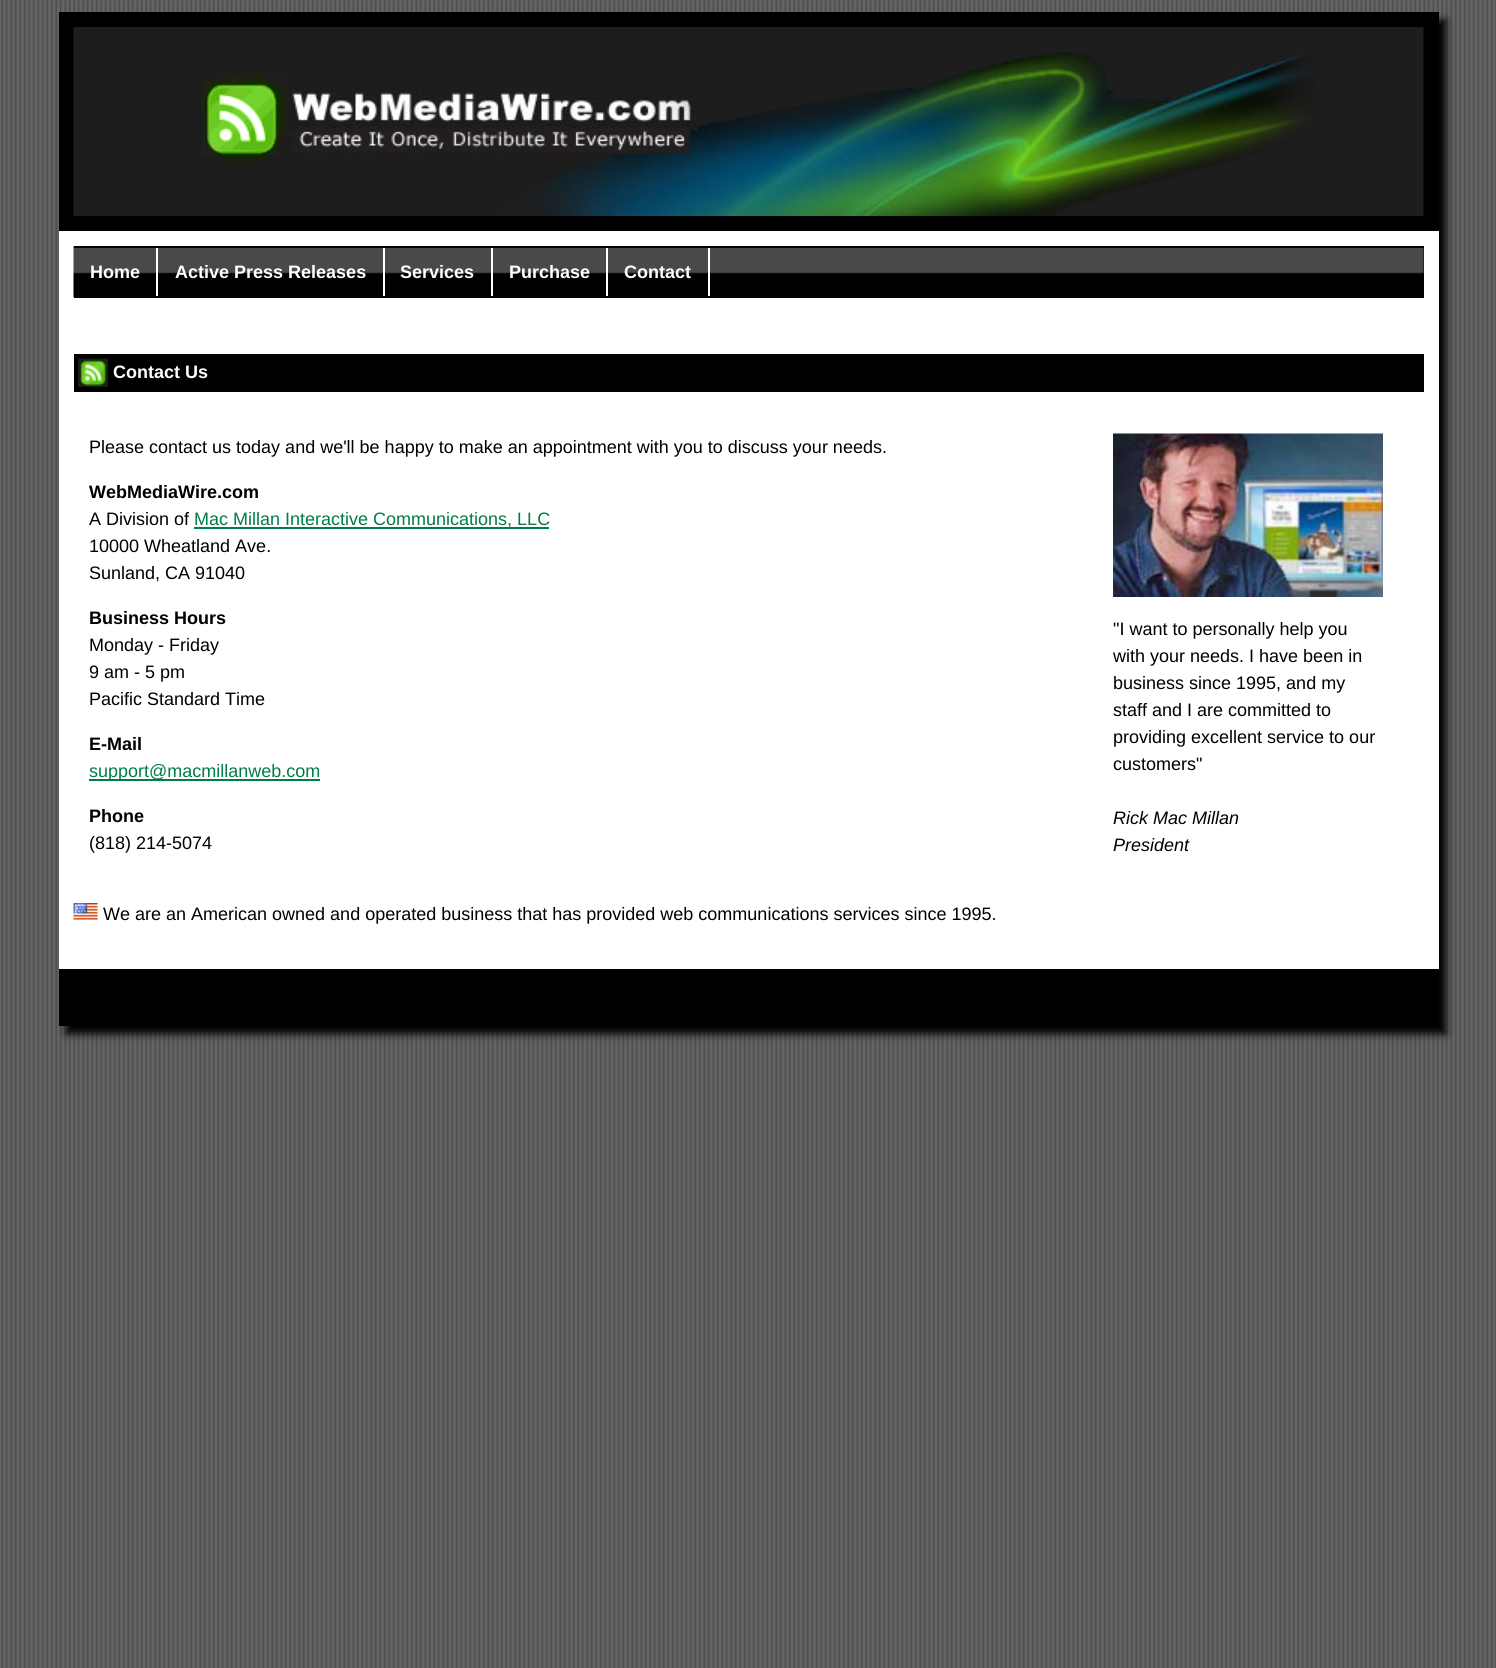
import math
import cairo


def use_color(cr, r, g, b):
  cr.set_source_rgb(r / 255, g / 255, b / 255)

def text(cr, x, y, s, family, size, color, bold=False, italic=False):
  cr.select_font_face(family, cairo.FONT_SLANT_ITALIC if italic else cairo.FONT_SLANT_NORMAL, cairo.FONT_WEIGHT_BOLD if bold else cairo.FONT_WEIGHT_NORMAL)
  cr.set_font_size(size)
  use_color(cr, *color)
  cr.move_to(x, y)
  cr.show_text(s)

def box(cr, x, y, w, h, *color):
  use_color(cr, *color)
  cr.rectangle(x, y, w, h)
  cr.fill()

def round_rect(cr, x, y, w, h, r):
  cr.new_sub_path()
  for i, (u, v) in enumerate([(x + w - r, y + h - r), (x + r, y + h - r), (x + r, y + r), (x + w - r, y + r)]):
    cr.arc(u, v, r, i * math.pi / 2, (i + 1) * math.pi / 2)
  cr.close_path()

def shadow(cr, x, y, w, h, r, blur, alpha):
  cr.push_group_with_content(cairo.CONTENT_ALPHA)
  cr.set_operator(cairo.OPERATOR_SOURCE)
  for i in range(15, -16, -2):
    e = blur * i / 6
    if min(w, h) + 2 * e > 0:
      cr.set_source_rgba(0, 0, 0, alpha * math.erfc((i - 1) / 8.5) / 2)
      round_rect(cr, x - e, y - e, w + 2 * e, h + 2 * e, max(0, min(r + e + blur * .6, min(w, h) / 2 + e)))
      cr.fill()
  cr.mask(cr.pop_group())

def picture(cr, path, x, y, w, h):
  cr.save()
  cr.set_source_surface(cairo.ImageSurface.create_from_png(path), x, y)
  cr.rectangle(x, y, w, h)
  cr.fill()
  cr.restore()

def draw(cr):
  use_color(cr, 255, 255, 255)
  cr.paint()
  picture(cr, "img_01.png", 0, 0, 1496, 1668)
  use_color(cr, 0, 0, 0)
  shadow(cr, 66, 20, 1380, 1014, 0, 4, 1)
  box(cr, 59, 231, 1380, 738, 255, 255, 255)
  box(cr, 59, 12, 1380, 219, 0, 0, 0)
  picture(cr, "img_02.png", 73, 27, 1351, 189)
  box(cr, 1423, 248, 1, 48, 0, 0, 0)
  picture(cr, "img_03.png", 73, 246, 1351, 51)
  box(cr, 74, 246, 1350, 2, 0, 0, 0)
  box(cr, 74, 296, 1350, 2, 0, 0, 0)
  box(cr, 156, 248, 2, 48, 255, 255, 255)
  box(cr, 383, 248, 2, 48, 255, 255, 255)
  box(cr, 491, 248, 2, 48, 255, 255, 255)
  box(cr, 606, 248, 2, 48, 255, 255, 255)
  box(cr, 708, 248, 2, 48, 255, 255, 255)
  box(cr, 74, 354, 1350, 38, 0, 0, 0)
  picture(cr, "img_04.png", 78, 358, 30, 29)
  box(cr, 194, 527, 355, 2, 0, 125, 71)
  box(cr, 89, 779, 231, 2, 0, 125, 71)
  picture(cr, "img_05.png", 1113, 433, 270, 164)
  picture(cr, "img_06.png", 73, 903, 25, 17)
  box(cr, 59, 969, 1380, 57, 0, 0, 0)
  text(cr, 90, 278, "Home", "Liberation Sans", 18, (255, 255, 255), bold=True)
  text(cr, 175, 278, "Active Press Releases", "Liberation Sans", 18, (255, 255, 255), bold=True)
  text(cr, 400, 278, "Services", "Liberation Sans", 18, (255, 255, 255), bold=True)
  text(cr, 509, 278, "Purchase", "Liberation Sans", 18, (255, 255, 255), bold=True)
  text(cr, 624, 278, "Contact", "Liberation Sans", 18, (255, 255, 255), bold=True)
  text(cr, 113, 378, "Contact Us", "Liberation Sans", 18, (255, 255, 255), bold=True)
  text(cr, 89, 453, "Please contact us today and we'll be happy to make an appointment with you to discuss your needs.", "Liberation Sans", 18, (0, 0, 0))
  text(cr, 89, 498, "WebMediaWire.com", "Liberation Sans", 18, (0, 0, 0), bold=True)
  text(cr, 89, 525, "A Division of", "Liberation Sans", 18, (0, 0, 0))
  text(cr, 194, 525, "Mac Millan Interactive Communications, LLC", "Liberation Sans", 18, (0, 125, 71))
  text(cr, 89, 552, "10000 Wheatland Ave.", "Liberation Sans", 18, (0, 0, 0))
  text(cr, 89, 579, "Sunland, CA 91040", "Liberation Sans", 18, (0, 0, 0))
  text(cr, 89, 624, "Business Hours", "Liberation Sans", 18, (0, 0, 0), bold=True)
  text(cr, 89, 651, "Monday - Friday", "Liberation Sans", 18, (0, 0, 0))
  text(cr, 89, 678, "9 am - 5 pm", "Liberation Sans", 18, (0, 0, 0))
  text(cr, 89, 705, "Pacific Standard Time", "Liberation Sans", 18, (0, 0, 0))
  text(cr, 89, 750, "E-Mail", "Liberation Sans", 18, (0, 0, 0), bold=True)
  text(cr, 89, 777, "support@macmillanweb.com", "Liberation Sans", 18, (0, 125, 71))
  text(cr, 89, 822, "Phone", "Liberation Sans", 18, (0, 0, 0), bold=True)
  text(cr, 89, 849, "(818) 214-5074", "Liberation Sans", 18, (0, 0, 0))
  text(cr, 1113, 635, "\"I want to personally help you", "Liberation Sans", 18, (0, 0, 0))
  text(cr, 1113, 662, "with your needs. I have been in", "Liberation Sans", 18, (0, 0, 0))
  text(cr, 1113, 689, "business since 1995, and my", "Liberation Sans", 18, (0, 0, 0))
  text(cr, 1113, 716, "staff and I are committed to", "Liberation Sans", 18, (0, 0, 0))
  text(cr, 1113, 743, "providing excellent service to our", "Liberation Sans", 18, (0, 0, 0))
  text(cr, 1113, 770, "customers\"", "Liberation Sans", 18, (0, 0, 0))
  text(cr, 1113, 824, "Rick Mac Millan", "Liberation Sans", 18, (0, 0, 0), italic=True)
  text(cr, 1113, 851, "President", "Liberation Sans", 18, (0, 0, 0), italic=True)
  text(cr, 103, 920, "We are an American owned and operated business that has provided web communications services since 1995.", "Liberation Sans", 18, (0, 0, 0))


surface = cairo.ImageSurface(cairo.FORMAT_RGB24, 1496, 1668)
cr = cairo.Context(surface)
options = cairo.FontOptions()
options.set_hint_metrics(cairo.HINT_METRICS_OFF)
options.set_hint_style(cairo.HINT_STYLE_NONE)
cr.set_font_options(options)
cr.set_miter_limit(4)
draw(cr)
surface.write_to_png("out.png")
